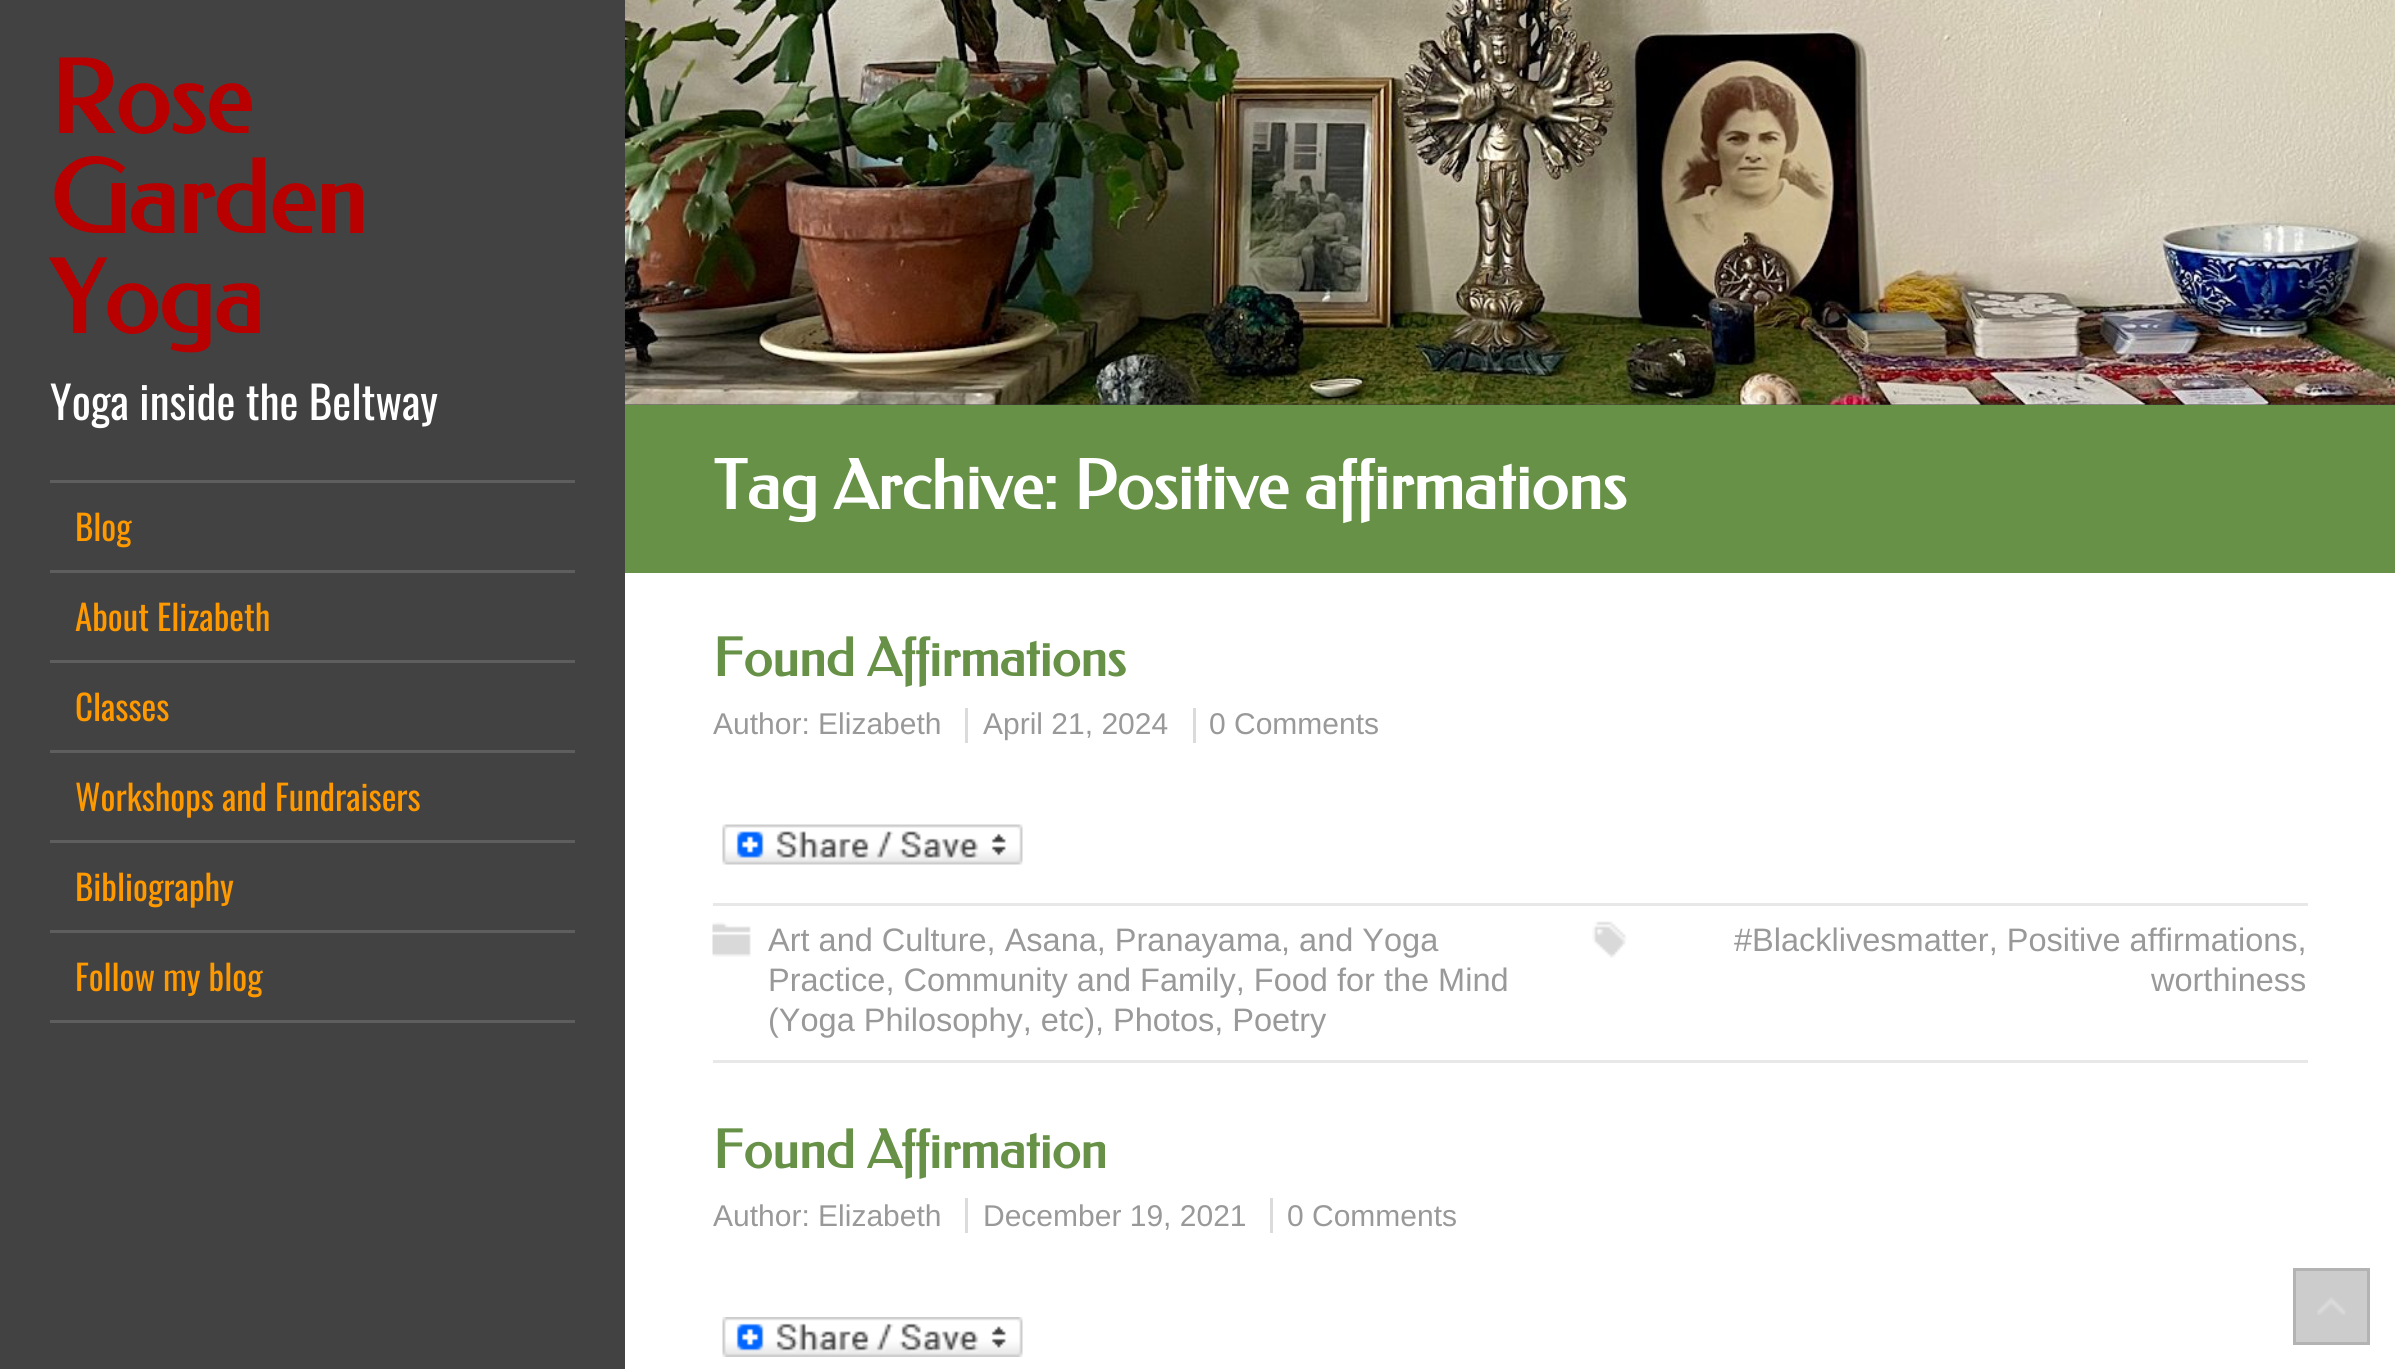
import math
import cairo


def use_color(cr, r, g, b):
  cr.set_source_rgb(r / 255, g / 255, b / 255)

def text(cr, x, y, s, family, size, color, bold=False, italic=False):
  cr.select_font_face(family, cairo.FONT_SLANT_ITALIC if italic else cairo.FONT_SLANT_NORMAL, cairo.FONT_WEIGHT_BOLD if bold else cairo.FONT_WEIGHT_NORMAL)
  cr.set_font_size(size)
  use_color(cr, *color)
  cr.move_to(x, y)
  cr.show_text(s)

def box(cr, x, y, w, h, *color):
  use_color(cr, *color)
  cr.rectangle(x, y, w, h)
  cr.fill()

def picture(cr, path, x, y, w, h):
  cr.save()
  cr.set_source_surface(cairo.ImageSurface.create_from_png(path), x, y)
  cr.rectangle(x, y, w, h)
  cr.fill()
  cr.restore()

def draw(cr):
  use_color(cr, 255, 255, 255)
  cr.paint()
  box(cr, 0, 0, 625, 1369, 66, 66, 66)
  box(cr, 50, 480, 525, 3, 94, 94, 94)
  box(cr, 50, 570, 525, 3, 94, 94, 94)
  box(cr, 50, 660, 525, 3, 94, 94, 94)
  box(cr, 50, 750, 525, 3, 94, 94, 94)
  box(cr, 50, 840, 525, 3, 94, 94, 94)
  box(cr, 50, 930, 525, 3, 94, 94, 94)
  box(cr, 50, 1020, 525, 3, 94, 94, 94)
  box(cr, 625, 404, 1770, 1, 66, 66, 66)
  picture(cr, "img_01.png", 625, 0, 1770, 405)
  box(cr, 625, 405, 1770, 168, 103, 145, 70)
  box(cr, 713, 1060, 1595, 3, 232, 232, 232)
  box(cr, 965, 708, 3, 35, 219, 219, 219)
  box(cr, 1193, 708, 3, 35, 219, 219, 219)
  picture(cr, "img_02.png", 722, 824, 301, 41)
  box(cr, 713, 903, 1595, 3, 232, 232, 232)
  picture(cr, "img_03.png", 712, 922, 39, 35)
  picture(cr, "img_04.png", 1592, 921, 35, 37)
  box(cr, 965, 1198, 3, 35, 219, 219, 219)
  box(cr, 1270, 1198, 3, 35, 219, 219, 219)
  picture(cr, "img_05.png", 722, 1317, 301, 40)
  box(cr, 2296, 1271, 71, 71, 204, 204, 204)
  picture(cr, "img_06.png", 2317, 1297, 29, 18)
  cr.rectangle(2294.5, 1269.5, 74, 74)
  use_color(cr, 179, 179, 179)
  cr.set_line_width(3)
  cr.stroke()
  text(cr, 50, 133, "Rose", "Federo", 100, (184, 0, 0), bold=True)
  text(cr, 50, 233, "Garden", "Federo", 100, (184, 0, 0), bold=True)
  text(cr, 50, 333, "Yoga", "Federo", 100, (184, 0, 0), bold=True)
  text(cr, 50, 420, "Yoga inside the Beltway", "Oswald", 45, (255, 255, 255))
  text(cr, 75, 541, "Blog", "Oswald", 35, (255, 153, 0))
  text(cr, 75, 631, "About Elizabeth", "Oswald", 35, (255, 153, 0))
  text(cr, 75, 721, "Classes", "Oswald", 35, (255, 153, 0))
  text(cr, 75, 811, "Workshops and Fundraisers", "Oswald", 35, (255, 153, 0))
  text(cr, 75, 901, "Bibliography", "Oswald", 35, (255, 153, 0))
  text(cr, 75, 991, "Follow my blog", "Oswald", 35, (255, 153, 0))
  text(cr, 713, 509, "Tag Archive: Positive affirmations", "Federo", 67.5, (255, 255, 255), bold=True)
  text(cr, 713, 676, "Found Affirmations", "Federo", 52.5, (103, 145, 70), bold=True)
  text(cr, 713, 734, "Author: Elizabeth", "Liberation Sans", 30, (153, 153, 153))
  text(cr, 983, 734, "April 21, 2024", "Liberation Sans", 30, (153, 153, 153))
  text(cr, 1209, 734, "0 Comments", "Liberation Sans", 30, (153, 153, 153))
  text(cr, 768, 951, "Art and Culture, Asana, Pranayama, and Yoga", "Liberation Sans", 32.5, (153, 153, 153))
  text(cr, 768, 991, "Practice, Community and Family, Food for the Mind", "Liberation Sans", 32.5, (153, 153, 153))
  text(cr, 768, 1031, "(Yoga Philosophy, etc), Photos, Poetry", "Liberation Sans", 32.5, (153, 153, 153))
  text(cr, 1734, 951, "#Blacklivesmatter, Positive affirmations,", "Liberation Sans", 32.5, (153, 153, 153))
  text(cr, 2151, 991, "worthiness", "Liberation Sans", 32.5, (153, 153, 153))
  text(cr, 713, 1168, "Found Affirmation", "Federo", 52.5, (103, 145, 70), bold=True)
  text(cr, 713, 1226, "Author: Elizabeth", "Liberation Sans", 30, (153, 153, 153))
  text(cr, 983, 1226, "December 19, 2021", "Liberation Sans", 30, (153, 153, 153))
  text(cr, 1287, 1226, "0 Comments", "Liberation Sans", 30, (153, 153, 153))


surface = cairo.ImageSurface(cairo.FORMAT_RGB24, 2395, 1369)
cr = cairo.Context(surface)
options = cairo.FontOptions()
options.set_hint_metrics(cairo.HINT_METRICS_OFF)
options.set_hint_style(cairo.HINT_STYLE_NONE)
cr.set_font_options(options)
cr.set_miter_limit(4)
draw(cr)
surface.write_to_png("out.png")
